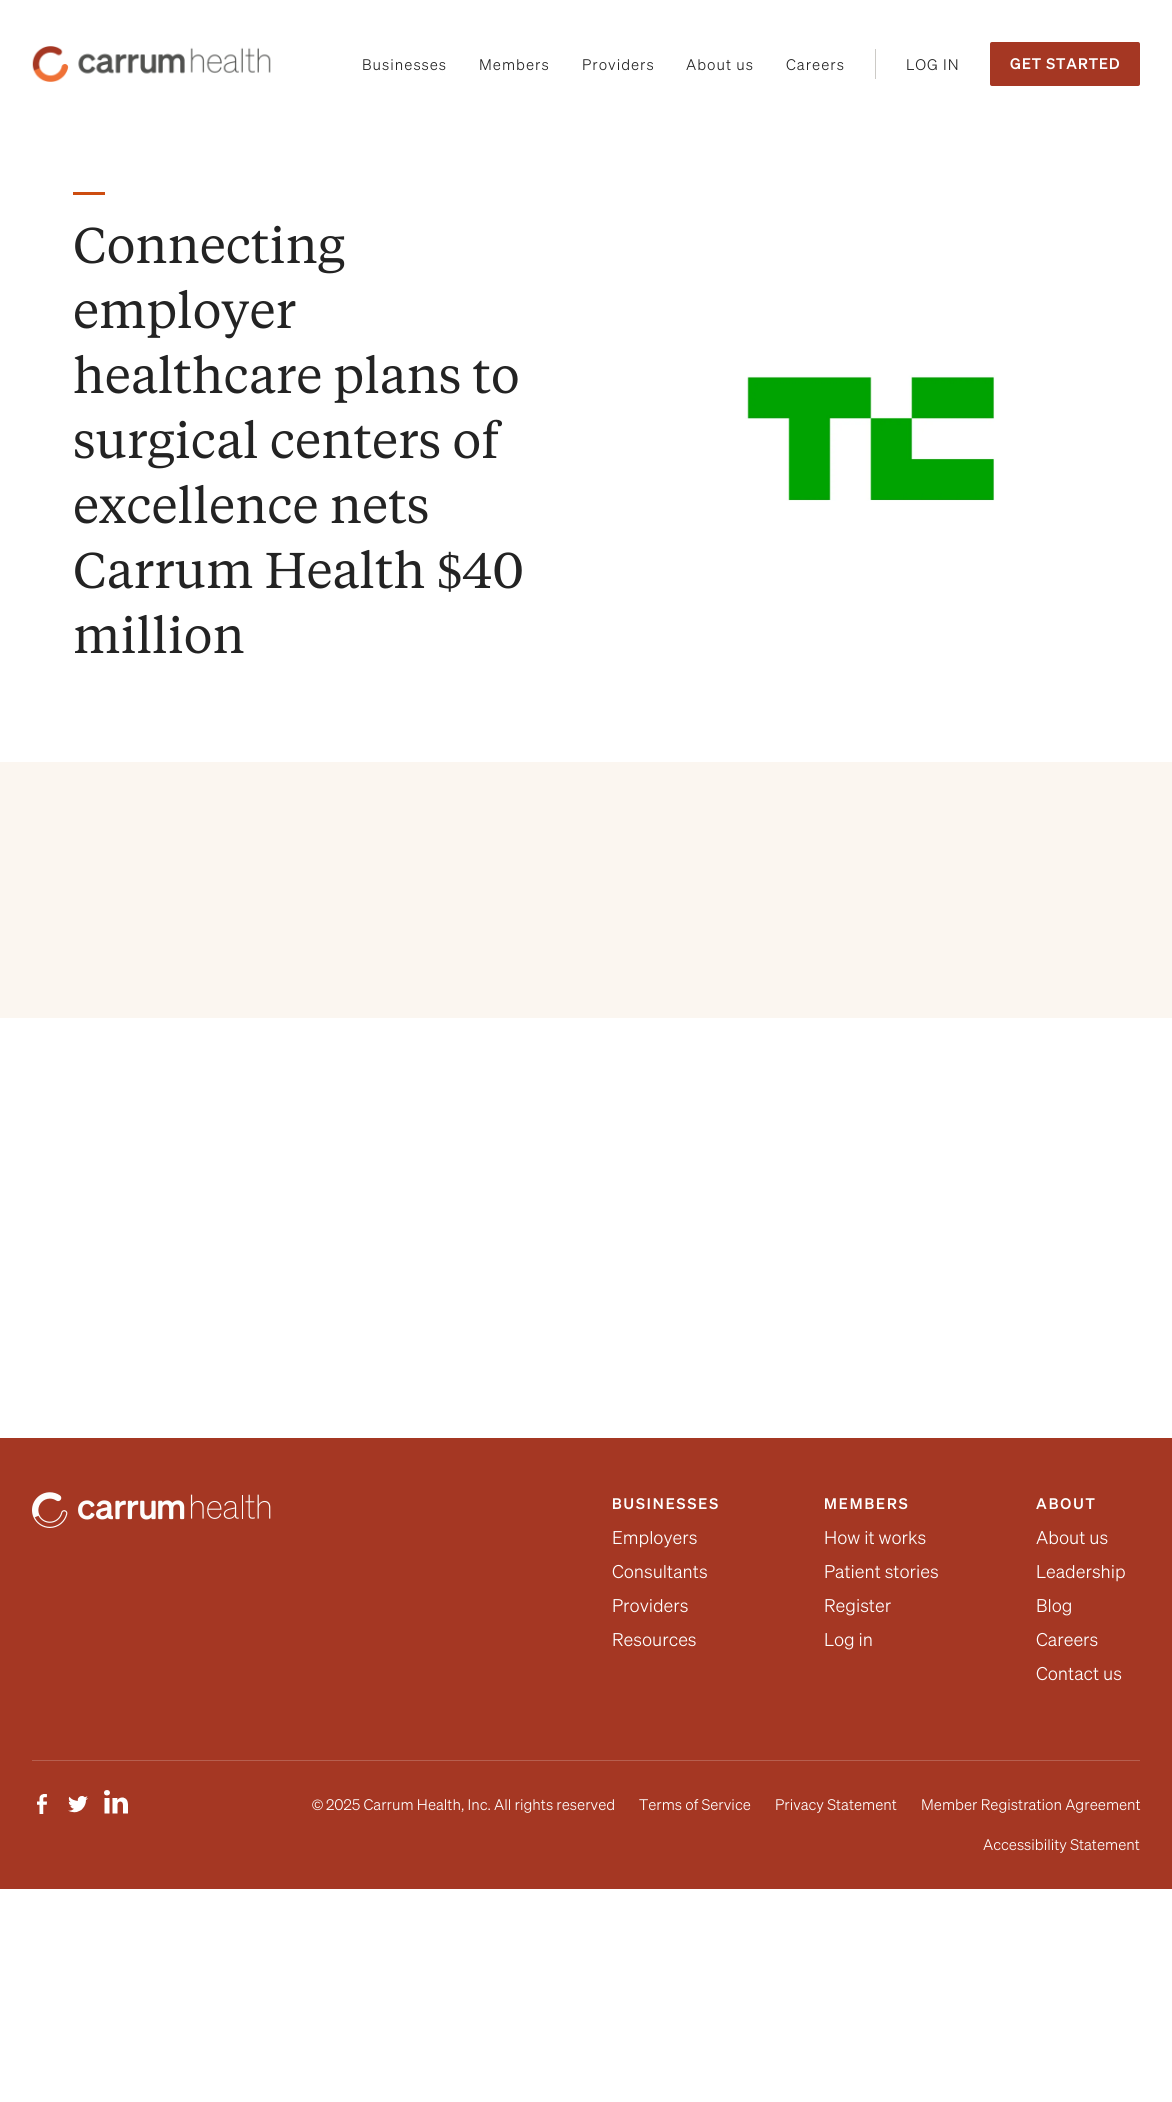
import math
import cairo


def use_color(cr, r, g, b):
  cr.set_source_rgb(r / 255, g / 255, b / 255)

def text(cr, x, y, s, family, size, color, bold=False, italic=False):
  cr.select_font_face(family, cairo.FONT_SLANT_ITALIC if italic else cairo.FONT_SLANT_NORMAL, cairo.FONT_WEIGHT_BOLD if bold else cairo.FONT_WEIGHT_NORMAL)
  cr.set_font_size(size)
  use_color(cr, *color)
  cr.move_to(x, y)
  cr.show_text(s)

def spaced_text(cr, x, y, s, letter, word):
  cr.move_to(x, y)
  for ch in s:
    cr.show_text(ch)
    cr.rel_move_to(letter + word * (ch == ' '), 0)

def box(cr, x, y, w, h, *color):
  use_color(cr, *color)
  cr.rectangle(x, y, w, h)
  cr.fill()

def round_rect(cr, x, y, w, h, r):
  cr.new_sub_path()
  for i, (u, v) in enumerate([(x + w - r, y + h - r), (x + r, y + h - r), (x + r, y + r), (x + w - r, y + r)]):
    cr.arc(u, v, r, i * math.pi / 2, (i + 1) * math.pi / 2)
  cr.close_path()

def picture(cr, path, x, y, w, h):
  cr.save()
  cr.set_source_surface(cairo.ImageSurface.create_from_png(path), x, y)
  cr.rectangle(x, y, w, h)
  cr.fill()
  cr.restore()

def draw(cr):
  use_color(cr, 255, 255, 255)
  cr.paint()
  picture(cr, "img_01.png", 32, 46, 239, 36)
  box(cr, 875, 49, 1, 30, 204, 202, 198)
  use_color(cr, 165, 55, 35)
  round_rect(cr, 990, 42, 150, 44, 2)
  cr.fill()
  box(cr, 73, 192, 32, 3, 205, 77, 16)
  picture(cr, "img_02.png", 745, 375, 250, 126)
  box(cr, 0, 762, 1172, 256, 251, 246, 240)
  box(cr, 0, 1438, 1172, 451, 165, 55, 35)
  picture(cr, "img_03.png", 32, 1492, 239, 36)
  box(cr, 32, 1760, 1108, 1, 183, 95, 79)
  picture(cr, "img_04.png", 37, 1794, 10, 20)
  picture(cr, "img_05.png", 68, 1796, 20, 17)
  picture(cr, "img_06.png", 104, 1790, 24, 24)
  cr.select_font_face("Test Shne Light")
  cr.set_font_size(15)
  use_color(cr, 35, 35, 35)
  spaced_text(cr, 362, 70, "Businesses", 1, 0)
  spaced_text(cr, 479, 70, "Members", 1, 0)
  spaced_text(cr, 582, 70, "Providers", 1, 0)
  spaced_text(cr, 686, 70, "About us", 1, 0)
  spaced_text(cr, 786, 70, "Careers", 1, 0)
  spaced_text(cr, 906, 70, "LOG IN", 1, 0)
  cr.select_font_face("Test Shne Medium")
  use_color(cr, 255, 255, 255)
  spaced_text(cr, 1010, 69, "GET STARTED", 1, 0)
  text(cr, 73, 263, "Connecting", "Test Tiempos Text", 50, (35, 35, 35))
  text(cr, 73, 328, "employer", "Test Tiempos Text", 50, (35, 35, 35))
  text(cr, 73, 393, "healthcare plans to", "Test Tiempos Text", 50, (35, 35, 35))
  text(cr, 73, 458, "surgical centers of", "Test Tiempos Text", 50, (35, 35, 35))
  text(cr, 73, 523, "excellence nets", "Test Tiempos Text", 50, (35, 35, 35))
  text(cr, 73, 588, "Carrum Health", "Test Tiempos Text", 50, (35, 35, 35))
  text(cr, 437, 588, "$", "Liberation Serif", 50, (35, 35, 35))
  text(cr, 462, 588, "40", "Test Tiempos Text", 50, (35, 35, 35))
  text(cr, 73, 653, "million", "Test Tiempos Text", 50, (35, 35, 35))
  cr.select_font_face("Test Shne Medium")
  cr.set_font_size(15)
  use_color(cr, 255, 255, 255)
  spaced_text(cr, 612, 1509, "BUSINESSES", 2, 0)
  text(cr, 612, 1544, "Employers", "Test Shne Light", 18, (255, 255, 255))
  text(cr, 612, 1578, "Consultants", "Test Shne Light", 18, (255, 255, 255))
  text(cr, 612, 1612, "Providers", "Test Shne Light", 18, (255, 255, 255))
  text(cr, 612, 1646, "Resources", "Test Shne Light", 18, (255, 255, 255))
  cr.select_font_face("Test Shne Medium")
  cr.set_font_size(15)
  spaced_text(cr, 824, 1509, "MEMBERS", 2, 0)
  text(cr, 824, 1544, "How it works", "Test Shne Light", 18, (255, 255, 255))
  text(cr, 824, 1578, "Patient stories", "Test Shne Light", 18, (255, 255, 255))
  text(cr, 824, 1612, "Register", "Test Shne Light", 18, (255, 255, 255))
  text(cr, 824, 1646, "Log in", "Test Shne Light", 18, (255, 255, 255))
  cr.select_font_face("Test Shne Medium")
  cr.set_font_size(15)
  spaced_text(cr, 1036, 1509, "ABOUT", 2, 0)
  text(cr, 1036, 1544, "About us", "Test Shne Light", 18, (255, 255, 255))
  text(cr, 1036, 1578, "Leadership", "Test Shne Light", 18, (255, 255, 255))
  text(cr, 1036, 1612, "Blog", "Test Shne Light", 18, (255, 255, 255))
  text(cr, 1036, 1646, "Careers", "Test Shne Light", 18, (255, 255, 255))
  text(cr, 1036, 1680, "Contact us", "Test Shne Light", 18, (255, 255, 255))
  text(cr, 312, 1810, "©", "Liberation Sans", 15, (255, 255, 255))
  text(cr, 326, 1810, "2025 Carrum Health, Inc. All rights reserved", "Test Shne Light", 15, (255, 255, 255))
  text(cr, 639, 1810, "Terms of Service", "Test Shne Light", 15, (255, 255, 255))
  text(cr, 775, 1810, "Privacy Statement", "Test Shne Light", 15, (255, 255, 255))
  text(cr, 921, 1810, "Member Registration Agreement", "Test Shne Light", 15, (255, 255, 255))
  text(cr, 983, 1850, "Accessibility Statement", "Test Shne Light", 15, (255, 255, 255))


surface = cairo.ImageSurface(cairo.FORMAT_RGB24, 1172, 2102)
cr = cairo.Context(surface)
options = cairo.FontOptions()
options.set_hint_metrics(cairo.HINT_METRICS_OFF)
options.set_hint_style(cairo.HINT_STYLE_NONE)
cr.set_font_options(options)
cr.set_miter_limit(4)
draw(cr)
surface.write_to_png("out.png")
